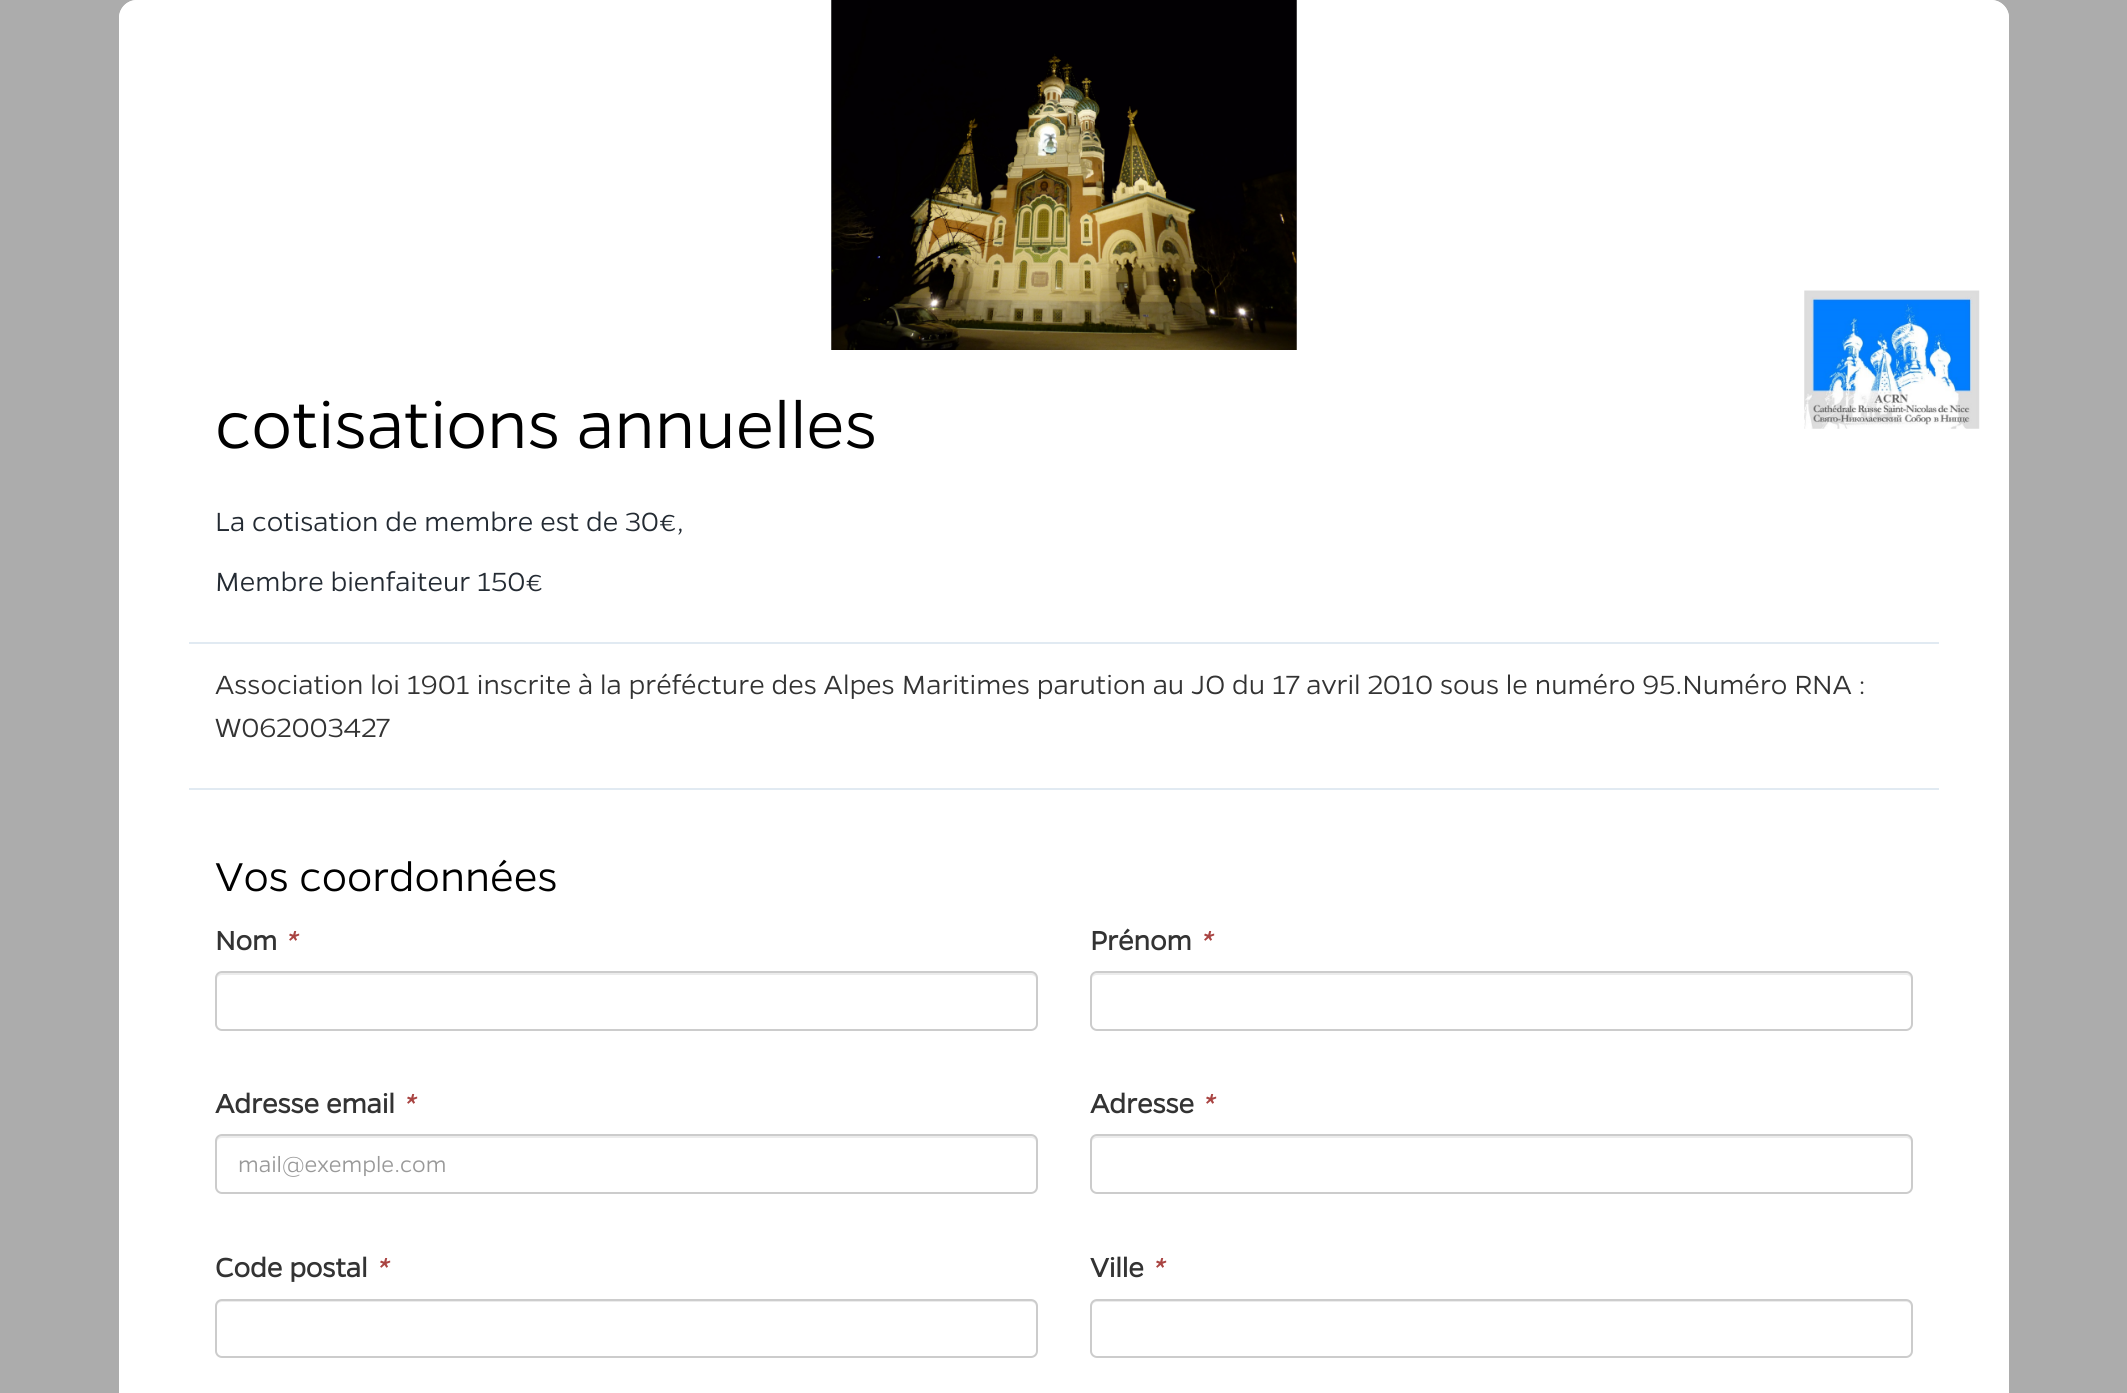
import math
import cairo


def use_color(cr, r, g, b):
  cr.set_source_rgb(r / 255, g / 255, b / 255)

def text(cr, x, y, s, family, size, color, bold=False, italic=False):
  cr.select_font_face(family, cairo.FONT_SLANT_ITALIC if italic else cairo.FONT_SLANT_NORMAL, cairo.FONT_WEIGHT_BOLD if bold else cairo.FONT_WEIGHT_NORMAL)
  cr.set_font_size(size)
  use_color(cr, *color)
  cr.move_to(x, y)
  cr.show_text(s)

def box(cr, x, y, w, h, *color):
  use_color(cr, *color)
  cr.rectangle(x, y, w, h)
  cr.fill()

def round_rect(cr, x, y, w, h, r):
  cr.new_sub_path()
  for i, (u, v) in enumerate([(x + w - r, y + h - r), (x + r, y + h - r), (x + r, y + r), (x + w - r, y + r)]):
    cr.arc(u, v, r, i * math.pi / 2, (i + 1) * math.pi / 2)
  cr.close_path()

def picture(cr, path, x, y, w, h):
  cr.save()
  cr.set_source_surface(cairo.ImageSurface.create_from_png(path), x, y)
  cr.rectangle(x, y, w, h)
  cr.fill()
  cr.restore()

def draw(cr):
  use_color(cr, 172, 172, 172)
  cr.paint()
  use_color(cr, 255, 255, 255)
  round_rect(cr, 119, 0, 1890, 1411, 18)
  cr.fill()
  cr.new_path()
  cr.move_to(137, 0)
  cr.line_to(1991, 0)
  cr.curve_to(2001, 0, 2009, 8, 2009, 18)
  cr.line_to(2009, 350)
  cr.line_to(119, 350)
  cr.line_to(119, 18)
  cr.curve_to(119, 8, 127, 0, 137, 0)
  cr.close_path()
  cr.fill()
  picture(cr, "img_01.png", 831, 0, 466, 350)
  picture(cr, "img_02.png", 1804, 290, 176, 139)
  box(cr, 189, 642, 1750, 2, 225, 234, 242)
  box(cr, 189, 788, 1750, 2, 225, 234, 242)
  use_color(cr, 236, 236, 236)
  cr.new_path()
  cr.move_to(222, 975)
  cr.line_to(1031, 975)
  cr.curve_to(1034, 975, 1036, 977, 1036, 980)
  cr.line_to(1036, 978)
  cr.curve_to(1036, 975, 1034, 973, 1031, 973)
  cr.line_to(222, 973)
  cr.curve_to(219, 973, 217, 975, 217, 978)
  cr.line_to(217, 980)
  cr.curve_to(217, 977, 219, 975, 222, 975)
  cr.close_path()
  cr.fill()
  round_rect(cr, 216, 972, 821, 58, 6)
  use_color(cr, 204, 204, 204)
  cr.stroke()
  use_color(cr, 236, 236, 236)
  cr.new_path()
  cr.move_to(1097, 975)
  cr.line_to(1906, 975)
  cr.curve_to(1909, 975, 1911, 977, 1911, 980)
  cr.line_to(1911, 978)
  cr.curve_to(1911, 975, 1909, 973, 1906, 973)
  cr.line_to(1097, 973)
  cr.curve_to(1094, 973, 1092, 975, 1092, 978)
  cr.line_to(1092, 980)
  cr.curve_to(1092, 977, 1094, 975, 1097, 975)
  cr.close_path()
  cr.fill()
  round_rect(cr, 1091, 972, 821, 58, 6)
  use_color(cr, 204, 204, 204)
  cr.stroke()
  use_color(cr, 236, 236, 236)
  cr.new_path()
  cr.move_to(222, 1138)
  cr.line_to(1031, 1138)
  cr.curve_to(1034, 1138, 1036, 1140, 1036, 1143)
  cr.line_to(1036, 1141)
  cr.curve_to(1036, 1138, 1034, 1136, 1031, 1136)
  cr.line_to(222, 1136)
  cr.curve_to(219, 1136, 217, 1138, 217, 1141)
  cr.line_to(217, 1143)
  cr.curve_to(217, 1140, 219, 1138, 222, 1138)
  cr.close_path()
  cr.fill()
  round_rect(cr, 216, 1135, 821, 58, 6)
  use_color(cr, 204, 204, 204)
  cr.stroke()
  use_color(cr, 236, 236, 236)
  cr.new_path()
  cr.move_to(1097, 1138)
  cr.line_to(1906, 1138)
  cr.curve_to(1909, 1138, 1911, 1140, 1911, 1143)
  cr.line_to(1911, 1141)
  cr.curve_to(1911, 1138, 1909, 1136, 1906, 1136)
  cr.line_to(1097, 1136)
  cr.curve_to(1094, 1136, 1092, 1138, 1092, 1141)
  cr.line_to(1092, 1143)
  cr.curve_to(1092, 1140, 1094, 1138, 1097, 1138)
  cr.close_path()
  cr.fill()
  round_rect(cr, 1091, 1135, 821, 58, 6)
  use_color(cr, 204, 204, 204)
  cr.stroke()
  use_color(cr, 236, 236, 236)
  cr.new_path()
  cr.move_to(222, 1302)
  cr.line_to(1031, 1302)
  cr.curve_to(1034, 1302, 1036, 1304, 1036, 1307)
  cr.line_to(1036, 1305)
  cr.curve_to(1036, 1302, 1034, 1300, 1031, 1300)
  cr.line_to(222, 1300)
  cr.curve_to(219, 1300, 217, 1302, 217, 1305)
  cr.line_to(217, 1307)
  cr.curve_to(217, 1304, 219, 1302, 222, 1302)
  cr.close_path()
  cr.fill()
  round_rect(cr, 216, 1300, 821, 57, 6)
  use_color(cr, 204, 204, 204)
  cr.stroke()
  use_color(cr, 236, 236, 236)
  cr.new_path()
  cr.move_to(1097, 1302)
  cr.line_to(1906, 1302)
  cr.curve_to(1909, 1302, 1911, 1304, 1911, 1307)
  cr.line_to(1911, 1305)
  cr.curve_to(1911, 1302, 1909, 1300, 1906, 1300)
  cr.line_to(1097, 1300)
  cr.curve_to(1094, 1300, 1092, 1302, 1092, 1305)
  cr.line_to(1092, 1307)
  cr.curve_to(1092, 1304, 1094, 1302, 1097, 1302)
  cr.close_path()
  cr.fill()
  round_rect(cr, 1091, 1300, 821, 57, 6)
  use_color(cr, 204, 204, 204)
  cr.stroke()
  text(cr, 215, 448, "cotisations annuelles", "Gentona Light", 73.5, (0, 0, 0))
  text(cr, 215, 531, "La cotisation de membre est de 30€,", "Gentona Light", 29.75, (36, 43, 51))
  text(cr, 215, 591, "Membre bienfaiteur 150€", "Gentona Light", 29.75, (36, 43, 51))
  text(cr, 215, 694, "Association loi 1901 inscrite à la préfécture des Alpes Maritimes parution au JO du 17 avril 2010 sous le numéro 95.Numéro RNA :", "Gentona Light", 29.75, (51, 51, 51))
  text(cr, 215, 737, "W062003427", "Gentona Light", 29.75, (51, 51, 51))
  text(cr, 215, 891, "Vos coordonnées", "Gentona Light", 45.5, (0, 0, 0))
  text(cr, 215, 950, "Nom", "Gentona", 29.75, (51, 51, 51), bold=True)
  text(cr, 284, 950, "*", "Gentona", 29.75, (169, 68, 66), bold=True, italic=True)
  text(cr, 1090, 950, "Prénom", "Gentona", 29.75, (51, 51, 51), bold=True)
  text(cr, 1199, 950, "*", "Gentona", 29.75, (169, 68, 66), bold=True, italic=True)
  text(cr, 215, 1113, "Adresse email", "Gentona", 29.75, (51, 51, 51), bold=True)
  text(cr, 402, 1113, "*", "Gentona", 29.75, (169, 68, 66), bold=True, italic=True)
  text(cr, 238, 1172, "mail@exemple.com", "Gentona Light", 24.5, (153, 153, 153))
  text(cr, 1090, 1113, "Adresse", "Gentona", 29.75, (51, 51, 51), bold=True)
  text(cr, 1201, 1113, "*", "Gentona", 29.75, (169, 68, 66), bold=True, italic=True)
  text(cr, 215, 1277, "Code postal", "Gentona", 29.75, (51, 51, 51), bold=True)
  text(cr, 375, 1277, "*", "Gentona", 29.75, (169, 68, 66), bold=True, italic=True)
  text(cr, 1090, 1277, "Ville", "Gentona", 29.75, (51, 51, 51), bold=True)
  text(cr, 1151, 1277, "*", "Gentona", 29.75, (169, 68, 66), bold=True, italic=True)


surface = cairo.ImageSurface(cairo.FORMAT_RGB24, 2127, 1393)
cr = cairo.Context(surface)
options = cairo.FontOptions()
options.set_hint_metrics(cairo.HINT_METRICS_OFF)
options.set_hint_style(cairo.HINT_STYLE_NONE)
cr.set_font_options(options)
cr.set_miter_limit(4)
draw(cr)
surface.write_to_png("out.png")
